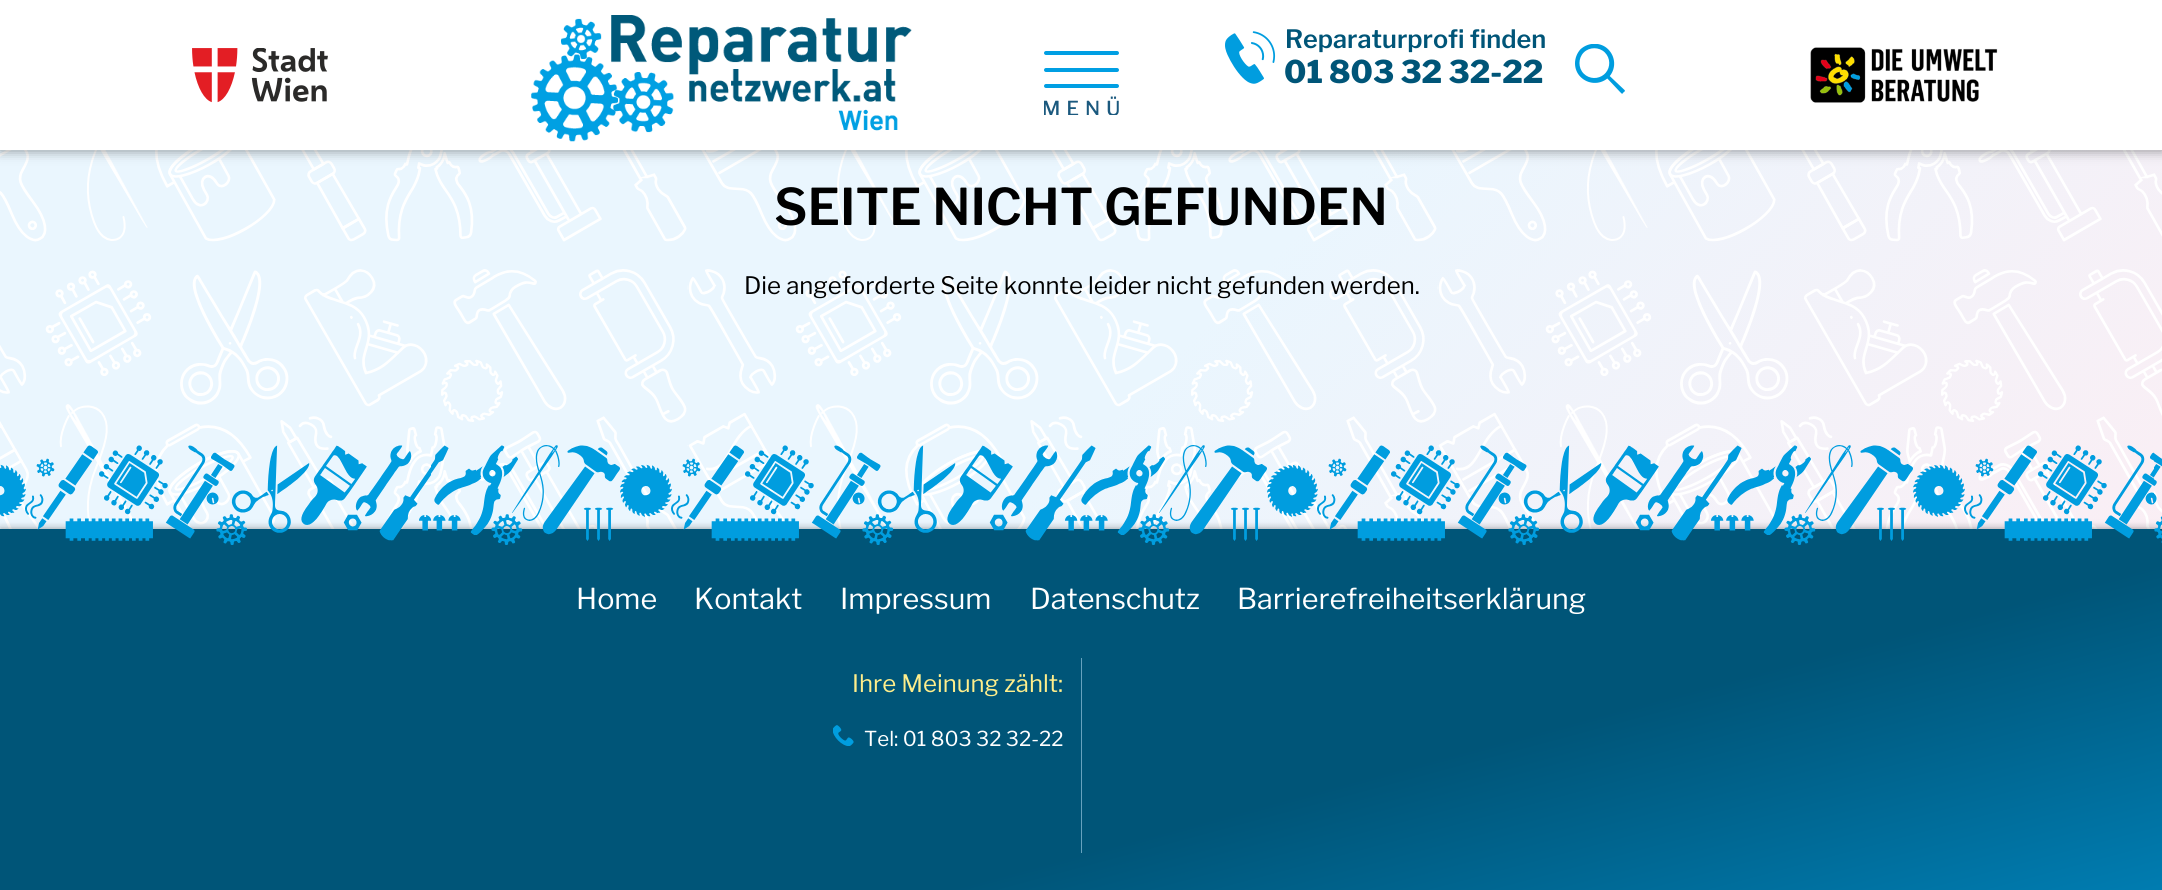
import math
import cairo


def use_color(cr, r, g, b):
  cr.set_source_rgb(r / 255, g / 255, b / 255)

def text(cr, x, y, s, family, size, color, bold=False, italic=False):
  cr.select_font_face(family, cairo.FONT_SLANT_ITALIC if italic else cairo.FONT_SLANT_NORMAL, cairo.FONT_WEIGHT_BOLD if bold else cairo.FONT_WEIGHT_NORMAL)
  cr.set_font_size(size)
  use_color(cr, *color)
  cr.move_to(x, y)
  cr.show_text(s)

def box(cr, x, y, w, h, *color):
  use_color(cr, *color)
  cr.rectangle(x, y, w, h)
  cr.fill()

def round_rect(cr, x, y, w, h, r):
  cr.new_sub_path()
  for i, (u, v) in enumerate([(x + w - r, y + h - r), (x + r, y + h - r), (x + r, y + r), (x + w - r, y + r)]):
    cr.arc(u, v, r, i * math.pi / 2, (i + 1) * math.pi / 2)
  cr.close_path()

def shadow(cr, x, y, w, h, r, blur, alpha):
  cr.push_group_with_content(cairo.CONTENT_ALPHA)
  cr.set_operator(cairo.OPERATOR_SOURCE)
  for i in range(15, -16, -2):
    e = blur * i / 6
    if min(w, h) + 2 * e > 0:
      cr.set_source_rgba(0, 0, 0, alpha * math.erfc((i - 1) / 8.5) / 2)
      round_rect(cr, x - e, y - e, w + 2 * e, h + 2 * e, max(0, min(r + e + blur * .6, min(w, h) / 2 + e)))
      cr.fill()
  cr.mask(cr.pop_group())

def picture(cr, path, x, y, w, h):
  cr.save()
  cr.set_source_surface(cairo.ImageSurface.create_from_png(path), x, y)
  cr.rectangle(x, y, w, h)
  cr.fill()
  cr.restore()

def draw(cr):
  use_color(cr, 255, 255, 255)
  cr.paint()
  picture(cr, "img_01.png", 0, 150, 2162, 379)
  use_color(cr, 0, 0, 0)
  shadow(cr, 0, 1, 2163, 150, 0, 6, 0.4)
  box(cr, 0, 0, 2162, 150, 255, 255, 255)
  picture(cr, "img_02.png", 192, 48, 136, 55)
  use_color(cr, 0, 159, 227)
  round_rect(cr, 1044, 51, 75, 4, 2)
  cr.fill()
  round_rect(cr, 1044, 68, 75, 4, 2)
  cr.fill()
  round_rect(cr, 1044, 84, 75, 4, 2)
  cr.fill()
  picture(cr, "img_03.png", 1044, 96, 75, 19)
  picture(cr, "img_04.png", 531, 15, 381, 127)
  picture(cr, "img_05.png", 1225, 31, 51, 53)
  picture(cr, "img_06.png", 1575, 44, 50, 50)
  picture(cr, "img_07.png", 1810, 47, 188, 56)
  use_color(cr, 0, 0, 0)
  shadow(cr, 0, 529, 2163, 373, 0, 4, 0.4)
  gradient = cairo.LinearGradient(927, 280, 1235, 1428)
  gradient.add_color_stop_rgba(0.5, 0, 0.333, 0.471, 1)
  gradient.add_color_stop_rgba(1, 0, 0.624, 0.89, 1)
  cr.set_source(gradient)
  cr.rectangle(0, 529, 2162, 361)
  cr.fill()
  picture(cr, "img_08.png", 0, 445, 2162, 100)
  picture(cr, "img_09.png", 833, 725, 21, 21)
  box(cr, 1081, 658, 1, 195, 103, 162, 190)
  text(cr, 1285, 48, "Reparaturprofi finden", "Libre Franklin Thin", 25.25, (0, 85, 120))
  text(cr, 1284, 83, "01 803 32 32-22", "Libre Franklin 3 Thin", 31.25, (0, 85, 120))
  text(cr, 774, 225, "SEITE NICHT GEFUNDEN", "Libre Franklin Thin", 50.4, (0, 0, 0))
  text(cr, 744, 294, "Die angeforderte Seite konnte leider nicht gefunden werden.", "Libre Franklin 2 Thin", 24, (0, 0, 0))
  text(cr, 576, 609, "Home", "Libre Franklin 2 Thin", 28.75, (255, 255, 255))
  text(cr, 694, 609, "Kontakt", "Libre Franklin 2 Thin", 28.75, (255, 255, 255))
  text(cr, 840, 609, "Impressum", "Libre Franklin 2 Thin", 28.75, (255, 255, 255))
  text(cr, 1030, 609, "Datenschutz", "Libre Franklin 2 Thin", 28.75, (255, 255, 255))
  text(cr, 1237, 609, "Barrierefreiheitserklärung", "Libre Franklin 2 Thin", 28.75, (255, 255, 255))
  text(cr, 852, 692, "Ihre Meinung zählt:", "Libre Franklin 2 Thin", 24, (255, 238, 139))
  text(cr, 864, 746, "Tel: 01 803 32 32-22", "Libre Franklin 2 Thin", 20.5, (255, 255, 255))


surface = cairo.ImageSurface(cairo.FORMAT_RGB24, 2162, 890)
cr = cairo.Context(surface)
options = cairo.FontOptions()
options.set_hint_metrics(cairo.HINT_METRICS_OFF)
options.set_hint_style(cairo.HINT_STYLE_NONE)
cr.set_font_options(options)
cr.set_miter_limit(4)
draw(cr)
surface.write_to_png("out.png")
